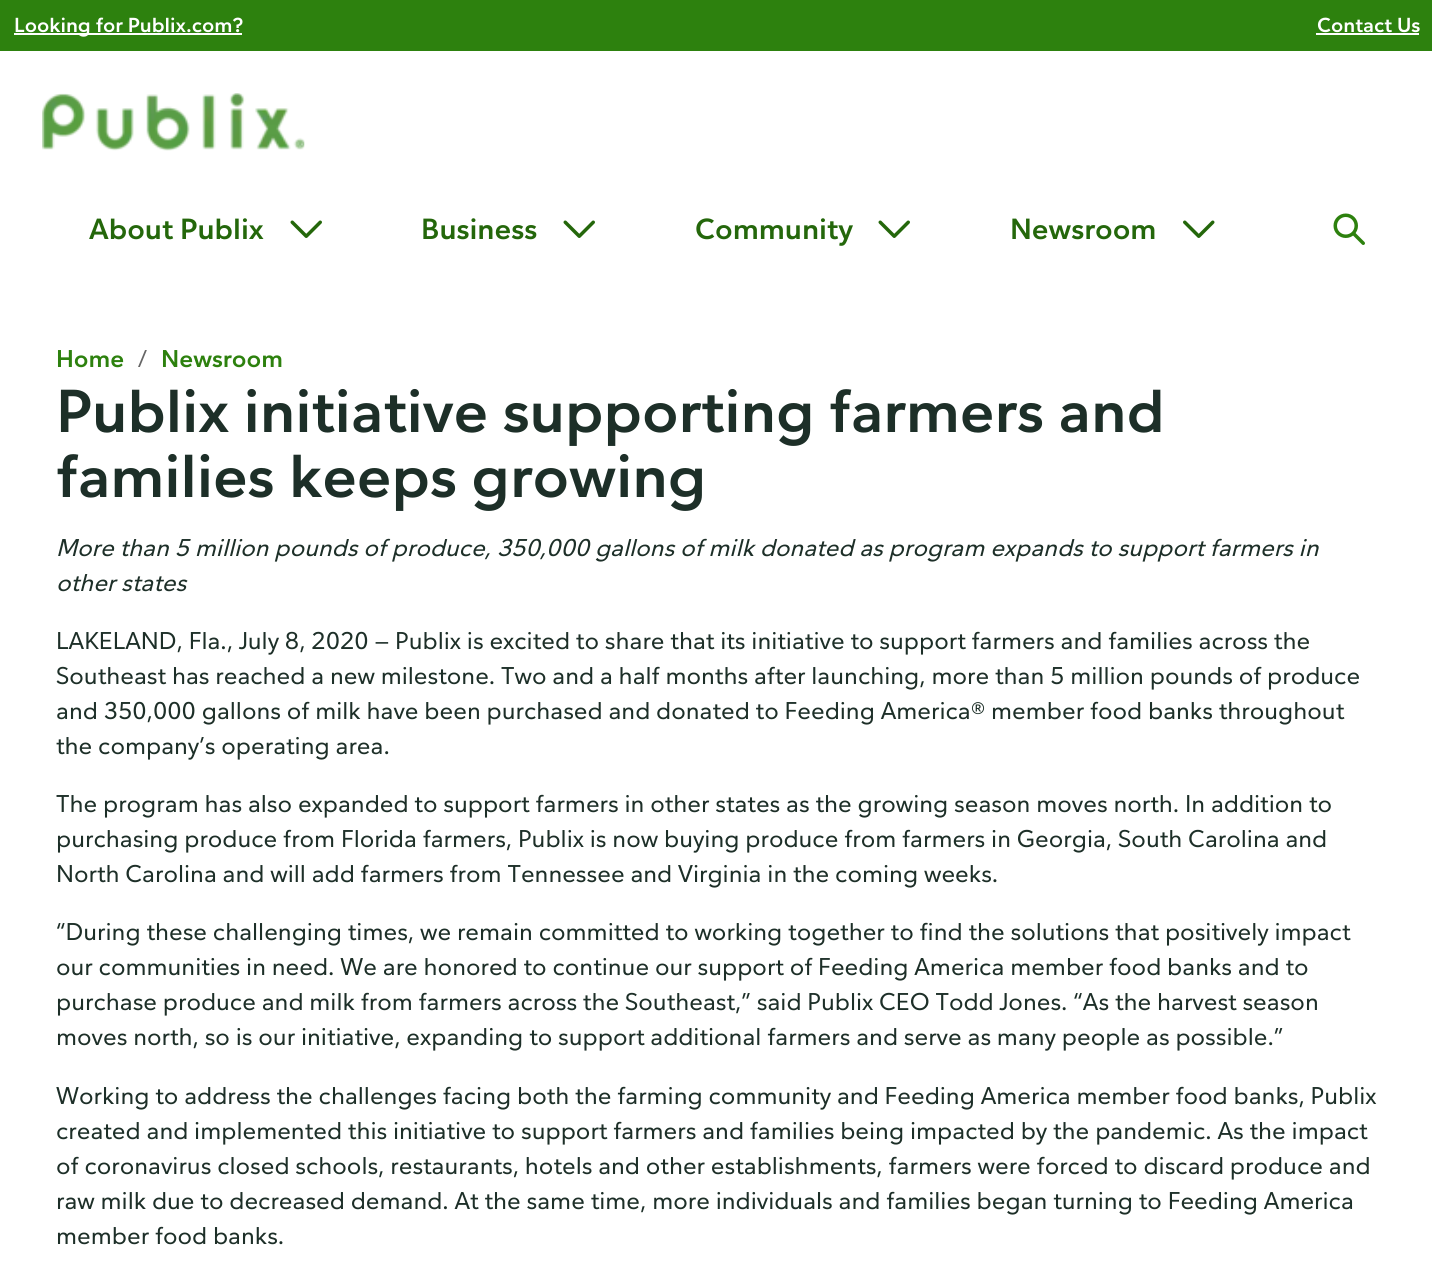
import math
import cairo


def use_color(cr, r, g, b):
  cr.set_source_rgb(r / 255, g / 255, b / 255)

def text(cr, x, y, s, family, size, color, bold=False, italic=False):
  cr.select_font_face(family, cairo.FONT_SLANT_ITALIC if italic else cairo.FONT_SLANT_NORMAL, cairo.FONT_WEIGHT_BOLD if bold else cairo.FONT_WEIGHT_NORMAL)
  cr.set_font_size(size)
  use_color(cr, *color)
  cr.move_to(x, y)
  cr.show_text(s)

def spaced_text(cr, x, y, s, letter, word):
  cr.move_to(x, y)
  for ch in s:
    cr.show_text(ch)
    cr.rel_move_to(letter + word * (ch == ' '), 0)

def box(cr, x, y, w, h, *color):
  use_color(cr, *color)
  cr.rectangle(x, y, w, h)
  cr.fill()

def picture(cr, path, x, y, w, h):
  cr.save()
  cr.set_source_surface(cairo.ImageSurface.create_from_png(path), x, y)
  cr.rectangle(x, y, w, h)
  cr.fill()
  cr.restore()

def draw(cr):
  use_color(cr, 255, 255, 255)
  cr.paint()
  box(cr, 0, 0, 1432, 51, 45, 129, 14)
  box(cr, 14, 33, 228, 2, 255, 255, 255)
  box(cr, 1316, 33, 103, 2, 255, 255, 255)
  picture(cr, "img_01.png", 42, 93, 263, 58)
  picture(cr, "img_02.png", 290, 220, 32, 18)
  picture(cr, "img_02.png", 563, 220, 32, 18)
  picture(cr, "img_02.png", 878, 220, 32, 18)
  picture(cr, "img_03.png", 1183, 220, 32, 18)
  picture(cr, "img_04.png", 1333, 213, 32, 32)
  text(cr, 14, 32, "Looking for Publix.com?", "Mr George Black", 19.5, (255, 255, 255))
  text(cr, 1317, 32, "Contact Us", "Mr George Black", 19.5, (255, 255, 255))
  text(cr, 89, 239, "About Publix", "Mr George Black", 28, (36, 103, 11))
  text(cr, 421, 239, "Business", "Mr George Black", 28, (36, 103, 11))
  text(cr, 695, 239, "Community", "Mr George Black", 28, (36, 103, 11))
  text(cr, 1010, 239, "Newsroom", "Mr George Black", 28, (36, 103, 11))
  text(cr, 56, 367, "Home", "Mr George Black", 23.32, (45, 129, 14))
  text(cr, 138, 367, "/", "Mr George", 23.32, (102, 102, 102))
  text(cr, 161, 367, "Newsroom", "Mr George Black", 23.32, (45, 129, 14))
  cr.set_font_size(58.1)
  use_color(cr, 29, 47, 40)
  spaced_text(cr, 56, 432, "Publix initiative supporting farmers and", -0.05, 0)
  spaced_text(cr, 56, 497, "families keeps growing", -0.05, 0)
  text(cr, 56, 556, "More than 5 million pounds of produce, 350,000 gallons of milk donated as program expands to support farmers in", "Mr George", 23.32, (29, 47, 40), italic=True)
  text(cr, 56, 591, "other states", "Mr George", 23.32, (29, 47, 40), italic=True)
  text(cr, 56, 649, "LAKELAND, Fla., July 8, 2020 — Publix is excited to share that its initiative to support farmers and families across the", "Mr George", 23.32, (29, 47, 40))
  text(cr, 56, 684, "Southeast has reached a new milestone. Two and a half months after launching, more than 5 million pounds of produce", "Mr George", 23.32, (29, 47, 40))
  text(cr, 56, 719, "and 350,000 gallons of milk have been purchased and donated to Feeding America® member food banks throughout", "Mr George", 23.32, (29, 47, 40))
  text(cr, 56, 754, "the company’s operating area.", "Mr George", 23.32, (29, 47, 40))
  text(cr, 56, 812, "The program has also expanded to support farmers in other states as the growing season moves north. In addition to", "Mr George", 23.32, (29, 47, 40))
  text(cr, 56, 847, "purchasing produce from Florida farmers, Publix is now buying produce from farmers in Georgia, South Carolina and", "Mr George", 23.32, (29, 47, 40))
  text(cr, 56, 882, "North Carolina and will add farmers from Tennessee and Virginia in the coming weeks.", "Mr George", 23.32, (29, 47, 40))
  text(cr, 56, 940, "“During these challenging times, we remain committed to working together to find the solutions that positively impact", "Mr George", 23.32, (29, 47, 40))
  text(cr, 56, 975, "our communities in need. We are honored to continue our support of Feeding America member food banks and to", "Mr George", 23.32, (29, 47, 40))
  text(cr, 56, 1010, "purchase produce and milk from farmers across the Southeast,” said Publix CEO Todd Jones. “As the harvest season", "Mr George", 23.32, (29, 47, 40))
  text(cr, 56, 1045, "moves north, so is our initiative, expanding to support additional farmers and serve as many people as possible.”", "Mr George", 23.32, (29, 47, 40))
  text(cr, 56, 1104, "Working to address the challenges facing both the farming community and Feeding America member food banks, Publix", "Mr George", 23.32, (29, 47, 40))
  text(cr, 56, 1139, "created and implemented this initiative to support farmers and families being impacted by the pandemic. As the impact", "Mr George", 23.32, (29, 47, 40))
  text(cr, 56, 1174, "of coronavirus closed schools, restaurants, hotels and other establishments, farmers were forced to discard produce and", "Mr George", 23.32, (29, 47, 40))
  text(cr, 56, 1209, "raw milk due to decreased demand. At the same time, more individuals and families began turning to Feeding America", "Mr George", 23.32, (29, 47, 40))
  text(cr, 56, 1244, "member food banks.", "Mr George", 23.32, (29, 47, 40))


surface = cairo.ImageSurface(cairo.FORMAT_RGB24, 1432, 1274)
cr = cairo.Context(surface)
options = cairo.FontOptions()
options.set_hint_metrics(cairo.HINT_METRICS_OFF)
options.set_hint_style(cairo.HINT_STYLE_NONE)
cr.set_font_options(options)
cr.set_miter_limit(4)
draw(cr)
surface.write_to_png("out.png")
